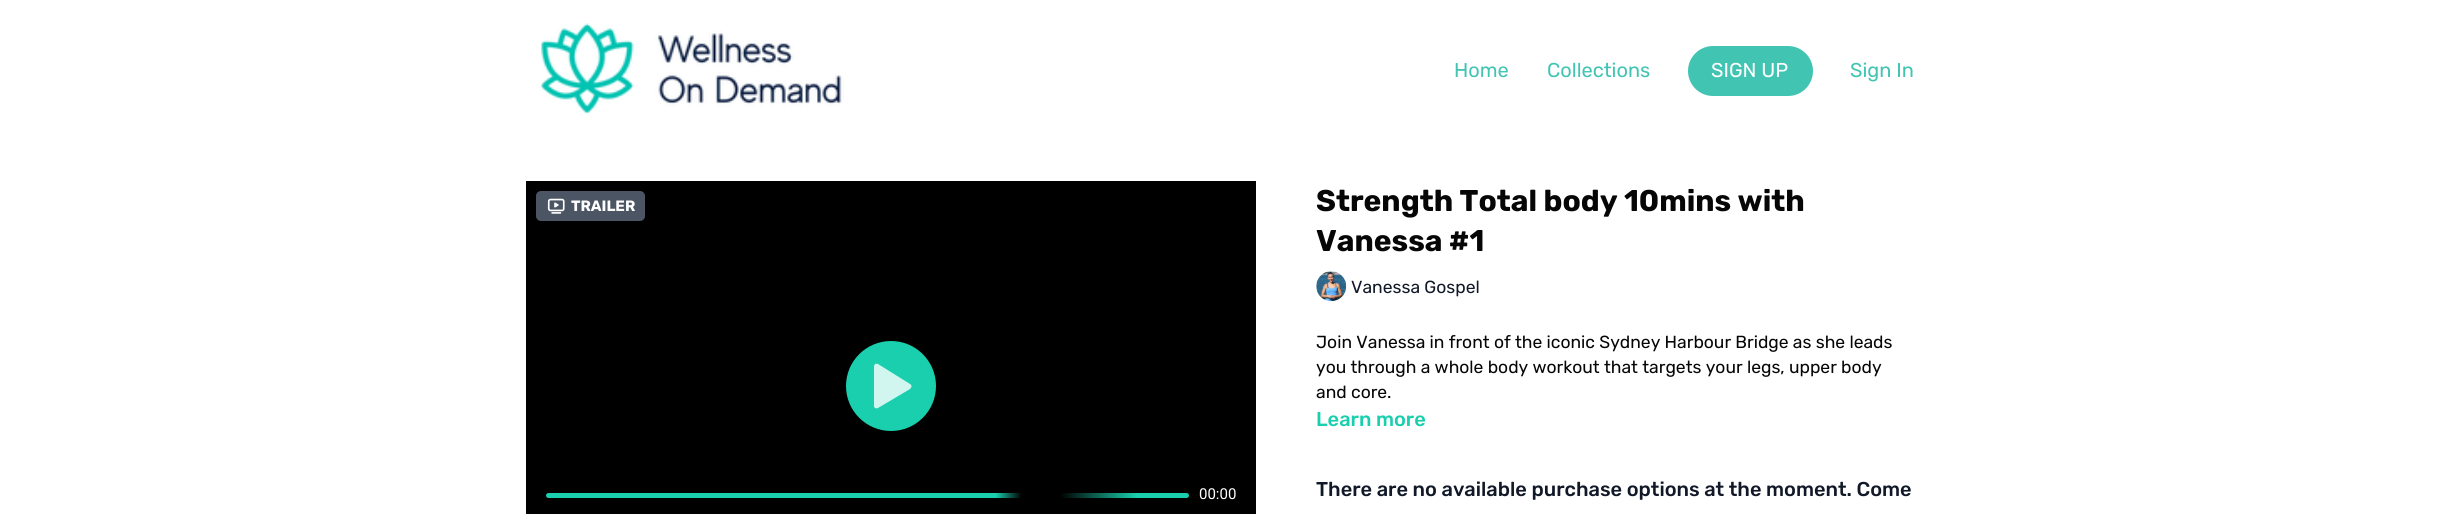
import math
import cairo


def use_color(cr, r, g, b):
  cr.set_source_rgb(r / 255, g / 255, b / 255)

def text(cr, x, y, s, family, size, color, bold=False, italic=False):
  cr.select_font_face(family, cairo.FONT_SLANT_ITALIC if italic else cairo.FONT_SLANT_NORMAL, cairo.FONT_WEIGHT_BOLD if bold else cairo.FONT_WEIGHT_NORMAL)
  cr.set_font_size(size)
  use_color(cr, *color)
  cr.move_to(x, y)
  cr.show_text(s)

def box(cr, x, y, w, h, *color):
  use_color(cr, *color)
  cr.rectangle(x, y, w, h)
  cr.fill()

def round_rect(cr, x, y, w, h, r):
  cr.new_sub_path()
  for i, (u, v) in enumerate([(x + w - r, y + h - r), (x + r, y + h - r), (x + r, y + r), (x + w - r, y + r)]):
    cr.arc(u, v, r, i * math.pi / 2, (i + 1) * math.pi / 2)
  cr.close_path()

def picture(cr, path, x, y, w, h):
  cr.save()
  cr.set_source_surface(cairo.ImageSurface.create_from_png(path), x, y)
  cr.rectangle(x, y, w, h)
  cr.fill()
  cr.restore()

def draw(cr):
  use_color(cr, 255, 255, 255)
  cr.paint()
  picture(cr, "img_01.png", 541, 23, 303, 92)
  use_color(cr, 66, 196, 179)
  round_rect(cr, 1688, 46, 125, 50, 25)
  cr.fill()
  box(cr, 526, 181, 730, 333, 0, 0, 0)
  use_color(cr, 75, 85, 99)
  round_rect(cr, 536, 191, 109, 30, 5)
  cr.fill()
  picture(cr, "img_02.png", 547, 198, 18, 16)
  use_color(cr, 25, 207, 173)
  cr.arc(891, 386, 45, 0, 2 * math.pi)
  cr.fill()
  use_color(cr, 209, 245, 239)
  cr.new_path()
  cr.move_to(878, 364)
  cr.curve_to(876, 363, 874, 364, 874, 367)
  cr.line_to(874, 406)
  cr.curve_to(874, 408, 876, 409, 878, 408)
  cr.line_to(910, 389)
  cr.curve_to(912, 387, 912, 385, 910, 384)
  cr.close_path()
  cr.fill()
  gradient = cairo.LinearGradient(546, 498, 1831, 497)
  gradient.add_color_stop_rgba(0.35, 0.098, 0.812, 0.678, 1)
  gradient.add_color_stop_rgba(0.37, 0, 0, 0, 1)
  gradient.add_color_stop_rgba(0.4, 0, 0, 0, 1)
  gradient.add_color_stop_rgba(0.46, 0.098, 0.812, 0.678, 1)
  gradient.add_color_stop_rgba(1, 0.098, 0.812, 0.678, 1)
  cr.set_source(gradient)
  round_rect(cr, 546, 493, 643, 5, 2.5)
  cr.fill()
  picture(cr, "img_03.png", 1316, 271, 31, 31)
  text(cr, 1454, 77, "Home", "Rubik", 20, (66, 196, 179))
  text(cr, 1547, 77, "Collections", "Rubik", 20, (66, 196, 179))
  text(cr, 1711, 77, "SIGN UP", "Rubik", 20, (255, 255, 255))
  text(cr, 1850, 77, "Sign In", "Rubik", 20, (66, 196, 179))
  text(cr, 571, 211, "TRAILER", "Rubik", 15, (255, 255, 255), bold=True)
  text(cr, 1199, 499, "00:00", "Roboto", 15, (255, 255, 255))
  text(cr, 1316, 211, "Strength Total body 10mins with", "Rubik", 30, (6, 6, 6), bold=True)
  text(cr, 1316, 251, "Vanessa #1", "Rubik", 30, (6, 6, 6), bold=True)
  text(cr, 1351, 293, "Vanessa Gospel", "Rubik", 17.5, (17, 24, 39))
  text(cr, 1316, 348, "Join Vanessa in front of the iconic Sydney Harbour Bridge as she leads", "Rubik", 17.5, (6, 6, 6))
  text(cr, 1316, 373, "you through a whole body workout that targets your legs, upper body", "Rubik", 17.5, (6, 6, 6))
  text(cr, 1316, 398, "and core.", "Rubik", 17.5, (6, 6, 6))
  text(cr, 1316, 426, "Learn more", "Rubik Medium", 20, (25, 207, 173))
  text(cr, 1316, 496, "There are no available purchase options at the moment. Come", "Rubik Medium", 20, (17, 24, 39))


surface = cairo.ImageSurface(cairo.FORMAT_RGB24, 2439, 514)
cr = cairo.Context(surface)
options = cairo.FontOptions()
options.set_hint_metrics(cairo.HINT_METRICS_OFF)
options.set_hint_style(cairo.HINT_STYLE_NONE)
cr.set_font_options(options)
cr.set_miter_limit(4)
draw(cr)
surface.write_to_png("out.png")
